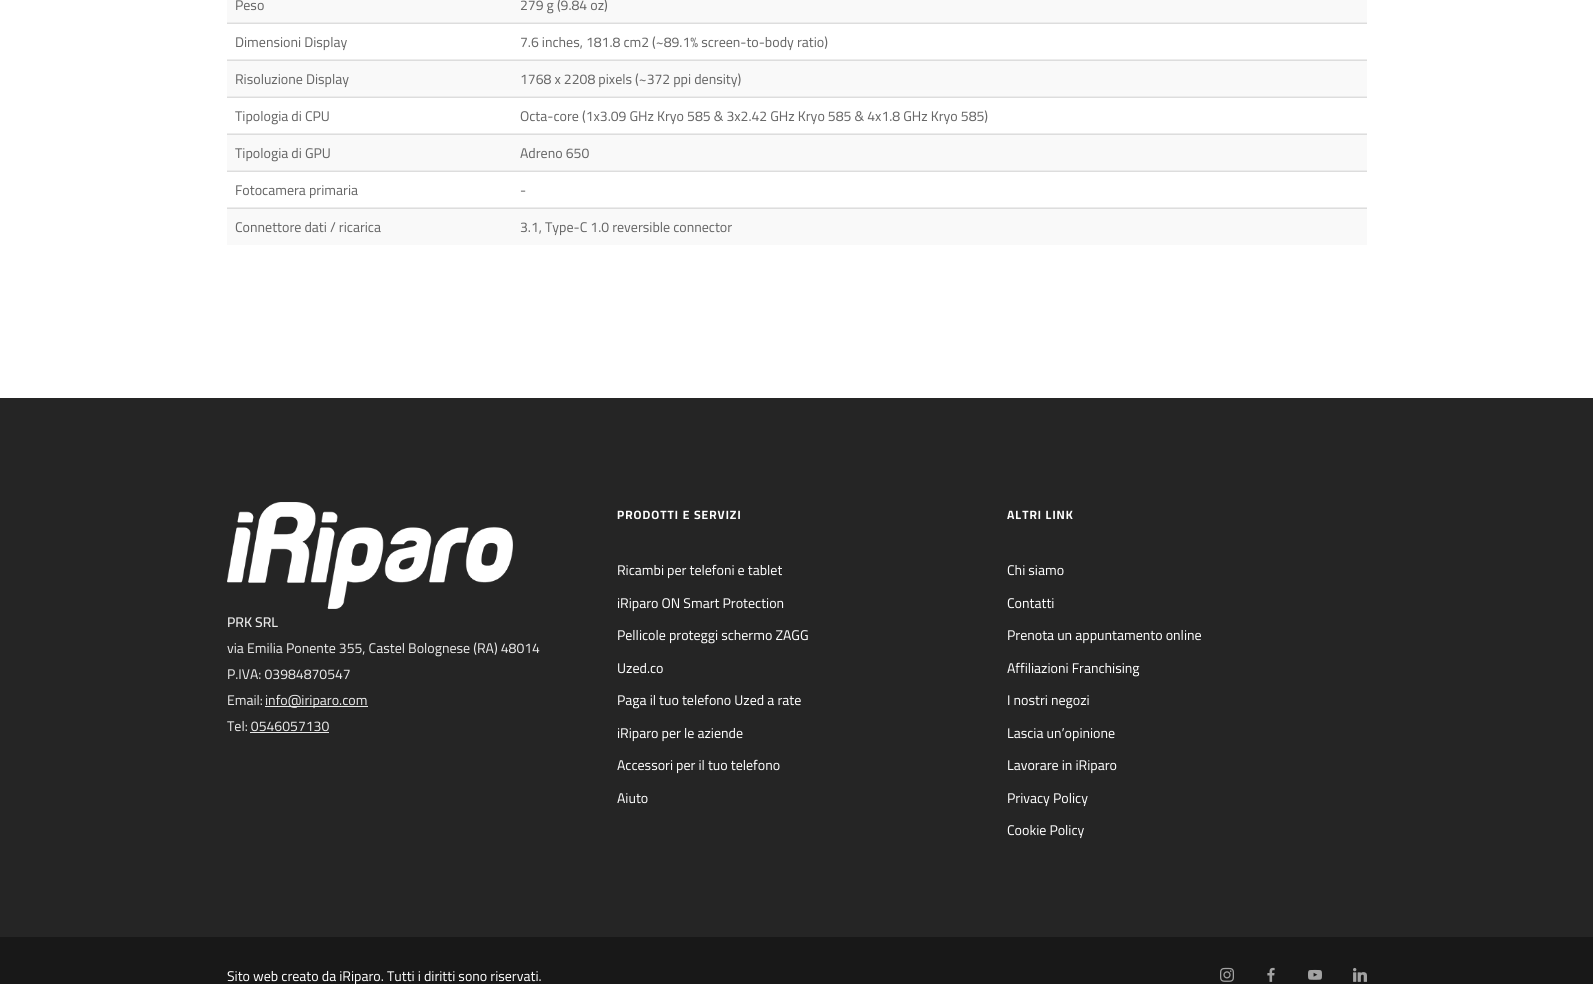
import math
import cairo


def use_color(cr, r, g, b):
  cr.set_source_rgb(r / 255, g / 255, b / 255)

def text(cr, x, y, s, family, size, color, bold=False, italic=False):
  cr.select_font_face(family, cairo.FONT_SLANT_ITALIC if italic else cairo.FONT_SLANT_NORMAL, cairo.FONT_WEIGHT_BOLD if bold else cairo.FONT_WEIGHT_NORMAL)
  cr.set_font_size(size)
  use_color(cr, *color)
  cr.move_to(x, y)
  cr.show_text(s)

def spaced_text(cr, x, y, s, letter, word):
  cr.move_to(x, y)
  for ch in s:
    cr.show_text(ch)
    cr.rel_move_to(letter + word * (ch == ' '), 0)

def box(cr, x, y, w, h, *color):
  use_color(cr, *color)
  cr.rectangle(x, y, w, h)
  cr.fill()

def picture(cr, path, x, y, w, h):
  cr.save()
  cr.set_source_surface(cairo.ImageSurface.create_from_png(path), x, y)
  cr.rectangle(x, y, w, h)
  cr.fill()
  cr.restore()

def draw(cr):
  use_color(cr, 255, 255, 255)
  cr.paint()
  box(cr, 227, 0, 1140, 22, 249, 249, 249)
  box(cr, 227, 22, 1140, 1, 236, 236, 236)
  box(cr, 227, 59, 1140, 1, 236, 236, 236)
  box(cr, 227, 23, 1140, 1, 221, 221, 221)
  box(cr, 227, 61, 1140, 35, 249, 249, 249)
  box(cr, 227, 96, 1140, 1, 236, 236, 236)
  box(cr, 227, 60, 1140, 1, 221, 221, 221)
  box(cr, 227, 133, 1140, 1, 236, 236, 236)
  box(cr, 227, 97, 1140, 1, 221, 221, 221)
  box(cr, 227, 135, 1140, 35, 249, 249, 249)
  box(cr, 227, 170, 1140, 1, 236, 236, 236)
  box(cr, 227, 134, 1140, 1, 221, 221, 221)
  box(cr, 227, 207, 1140, 1, 236, 236, 236)
  box(cr, 227, 171, 1140, 1, 221, 221, 221)
  box(cr, 227, 209, 1140, 36, 249, 249, 249)
  box(cr, 227, 208, 1140, 1, 221, 221, 221)
  box(cr, 0, 398, 1593, 539, 37, 37, 37)
  picture(cr, "img_01.png", 227, 502, 286, 107)
  box(cr, 265, 706, 103, 1, 233, 233, 233)
  box(cr, 250, 732, 79, 1, 233, 233, 233)
  box(cr, 0, 937, 1593, 47, 24, 24, 24)
  picture(cr, "img_02.png", 1220, 967, 14, 15)
  picture(cr, "img_03.png", 1267, 967, 8, 15)
  picture(cr, "img_04.png", 1308, 969, 14, 11)
  picture(cr, "img_05.png", 1353, 967, 14, 15)
  text(cr, 235, 10, "Peso", "Cairo", 14, (102, 102, 102))
  text(cr, 520, 10, "279 g (9.84 oz)", "Cairo", 14, (102, 102, 102))
  text(cr, 235, 47, "Dimensioni Display", "Cairo", 14, (102, 102, 102))
  text(cr, 520, 47, "7.6 inches, 181.8 cm2 (~89.1% screen-to-body ratio)", "Cairo", 14, (102, 102, 102))
  text(cr, 235, 84, "Risoluzione Display", "Cairo", 14, (102, 102, 102))
  text(cr, 520, 84, "1768 x 2208 pixels (~372 ppi density)", "Cairo", 14, (102, 102, 102))
  text(cr, 235, 121, "Tipologia di CPU", "Cairo", 14, (102, 102, 102))
  text(cr, 520, 121, "Octa-core (1x3.09 GHz Kryo 585 & 3x2.42 GHz Kryo 585 & 4x1.8 GHz Kryo 585)", "Cairo", 14, (102, 102, 102))
  text(cr, 235, 158, "Tipologia di GPU", "Cairo", 14, (102, 102, 102))
  text(cr, 520, 158, "Adreno 650", "Cairo", 14, (102, 102, 102))
  text(cr, 235, 195, "Fotocamera primaria", "Cairo", 14, (102, 102, 102))
  text(cr, 520, 195, "-", "Cairo", 14, (102, 102, 102))
  text(cr, 235, 232, "Connettore dati / ricarica", "Cairo", 14, (102, 102, 102))
  text(cr, 520, 232, "3.1, Type-C 1.0 reversible connector", "Cairo", 14, (102, 102, 102))
  text(cr, 227, 627, "PRK SRL", "Cairo SemiBold", 14, (233, 233, 233))
  text(cr, 227, 653, "via Emilia Ponente 355, Castel Bolognese (RA) 48014", "Cairo", 14, (233, 233, 233))
  text(cr, 227, 679, "P.IVA: 03984870547", "Cairo", 14, (233, 233, 233))
  text(cr, 227, 705, "Email:", "Cairo", 14, (233, 233, 233))
  text(cr, 265, 705, "info@iriparo.com", "Cairo", 14, (233, 233, 233))
  text(cr, 227, 731, "Tel: 0546057130", "Cairo", 14, (233, 233, 233))
  cr.select_font_face("Cairo", cairo.FONT_SLANT_NORMAL, cairo.FONT_WEIGHT_BOLD)
  cr.set_font_size(12)
  use_color(cr, 255, 255, 255)
  spaced_text(cr, 617, 519, "PRODOTTI E SERVIZI", 1, 0)
  text(cr, 617, 575, "Ricambi per telefoni e tablet", "Cairo", 14, (255, 255, 255))
  text(cr, 617, 608, "iRiparo ON Smart Protection", "Cairo", 14, (255, 255, 255))
  text(cr, 617, 640, "Pellicole proteggi schermo ZAGG", "Cairo", 14, (255, 255, 255))
  text(cr, 617, 673, "Uzed.co", "Cairo", 14, (255, 255, 255))
  text(cr, 617, 705, "Paga il tuo telefono Uzed a rate", "Cairo", 14, (255, 255, 255))
  text(cr, 617, 738, "iRiparo per le aziende", "Cairo", 14, (255, 255, 255))
  text(cr, 617, 770, "Accessori per il tuo telefono", "Cairo", 14, (255, 255, 255))
  text(cr, 617, 803, "Aiuto", "Cairo", 14, (255, 255, 255))
  cr.select_font_face("Cairo", cairo.FONT_SLANT_NORMAL, cairo.FONT_WEIGHT_BOLD)
  cr.set_font_size(12)
  spaced_text(cr, 1007, 519, "ALTRI LINK", 1, 0)
  text(cr, 1007, 575, "Chi siamo", "Cairo", 14, (255, 255, 255))
  text(cr, 1007, 608, "Contatti", "Cairo", 14, (255, 255, 255))
  text(cr, 1007, 640, "Prenota un appuntamento online", "Cairo", 14, (255, 255, 255))
  text(cr, 1007, 673, "Affiliazioni Franchising", "Cairo", 14, (255, 255, 255))
  text(cr, 1007, 705, "I nostri negozi", "Cairo", 14, (255, 255, 255))
  text(cr, 1007, 738, "Lascia un’opinione", "Cairo", 14, (255, 255, 255))
  text(cr, 1007, 770, "Lavorare in iRiparo", "Cairo", 14, (255, 255, 255))
  text(cr, 1007, 803, "Privacy Policy", "Cairo", 14, (255, 255, 255))
  text(cr, 1007, 835, "Cookie Policy", "Cairo", 14, (255, 255, 255))
  text(cr, 227, 981, "Sito web creato da iRiparo. Tutti i diritti sono riservati.", "Cairo", 14, (255, 255, 255))


surface = cairo.ImageSurface(cairo.FORMAT_RGB24, 1593, 984)
cr = cairo.Context(surface)
options = cairo.FontOptions()
options.set_hint_metrics(cairo.HINT_METRICS_OFF)
options.set_hint_style(cairo.HINT_STYLE_NONE)
cr.set_font_options(options)
cr.set_miter_limit(4)
draw(cr)
surface.write_to_png("out.png")
